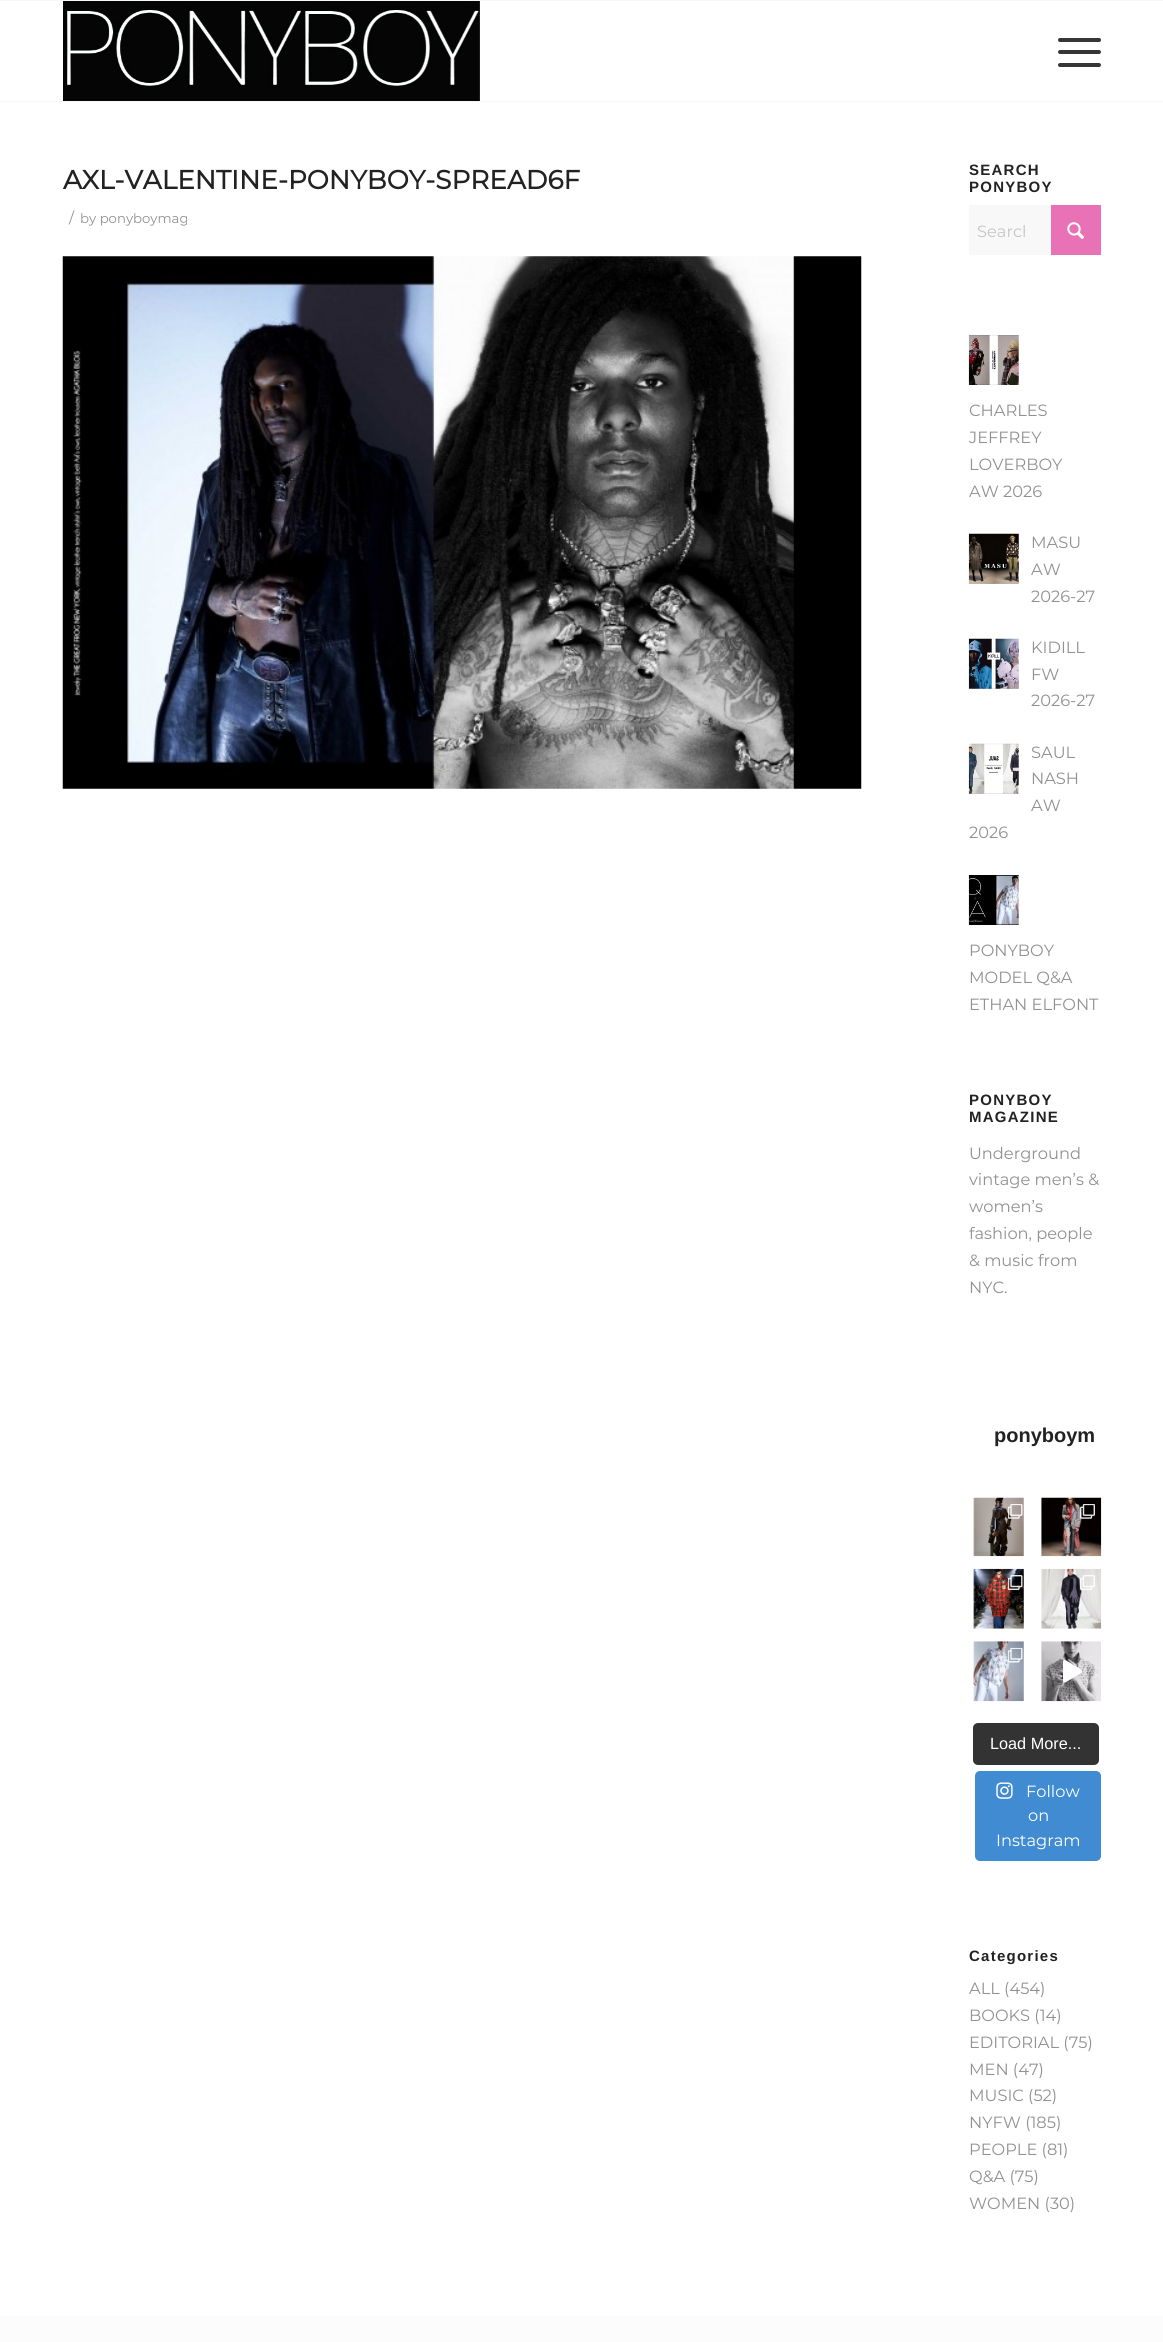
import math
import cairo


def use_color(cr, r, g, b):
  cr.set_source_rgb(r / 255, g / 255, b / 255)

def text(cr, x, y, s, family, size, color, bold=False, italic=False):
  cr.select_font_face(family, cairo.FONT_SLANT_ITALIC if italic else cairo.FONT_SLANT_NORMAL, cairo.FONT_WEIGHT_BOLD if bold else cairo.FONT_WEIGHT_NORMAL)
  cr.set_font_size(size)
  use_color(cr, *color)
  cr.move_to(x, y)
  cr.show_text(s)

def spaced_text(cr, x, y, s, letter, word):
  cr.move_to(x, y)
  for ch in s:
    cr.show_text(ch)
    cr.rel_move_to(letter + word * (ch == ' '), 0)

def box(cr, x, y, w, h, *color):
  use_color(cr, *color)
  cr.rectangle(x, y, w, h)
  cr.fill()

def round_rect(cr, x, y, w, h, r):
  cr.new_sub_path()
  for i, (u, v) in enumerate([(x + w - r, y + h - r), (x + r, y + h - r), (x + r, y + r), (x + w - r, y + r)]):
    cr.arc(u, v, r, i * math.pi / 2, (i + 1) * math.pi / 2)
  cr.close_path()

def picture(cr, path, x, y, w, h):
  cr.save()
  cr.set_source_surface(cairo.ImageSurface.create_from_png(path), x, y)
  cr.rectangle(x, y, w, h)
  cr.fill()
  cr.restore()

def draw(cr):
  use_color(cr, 255, 255, 255)
  cr.paint()
  box(cr, 0, 0, 1163, 1, 248, 248, 248)
  box(cr, 0, 101, 1163, 1, 248, 248, 248)
  picture(cr, "img_01.png", 63, 1, 417, 100)
  use_color(cr, 54, 54, 54)
  round_rect(cr, 1058, 50, 43, 4, 2)
  cr.fill()
  round_rect(cr, 1058, 38, 43, 4, 2)
  cr.fill()
  round_rect(cr, 1058, 63, 43, 4, 2)
  cr.fill()
  picture(cr, "img_02.png", 62, 256, 800, 533)
  box(cr, 1051, 205, 50, 50, 232, 114, 181)
  box(cr, 969, 205, 82, 50, 248, 248, 248)
  picture(cr, "img_03.png", 1067, 222, 17, 17)
  picture(cr, "img_04.png", 968, 335, 51, 50)
  picture(cr, "img_05.png", 968, 533, 51, 51)
  picture(cr, "img_06.png", 968, 638, 51, 51)
  picture(cr, "img_07.png", 968, 743, 51, 51)
  picture(cr, "img_08.png", 968, 875, 51, 50)
  picture(cr, "img_09.png", 973, 1497, 51, 60)
  picture(cr, "img_10.png", 1008, 1504, 15, 15)
  picture(cr, "img_11.png", 1041, 1497, 61, 60)
  picture(cr, "img_12.png", 1080, 1504, 15, 15)
  picture(cr, "img_13.png", 973, 1568, 51, 61)
  picture(cr, "img_14.png", 1008, 1575, 15, 15)
  picture(cr, "img_15.png", 1041, 1568, 61, 61)
  picture(cr, "img_16.png", 1080, 1575, 15, 15)
  picture(cr, "img_17.png", 973, 1641, 51, 61)
  picture(cr, "img_18.png", 1008, 1648, 15, 15)
  picture(cr, "img_19.png", 1041, 1641, 60, 61)
  picture(cr, "img_20.png", 1063, 1660, 20, 23)
  use_color(cr, 51, 51, 51)
  round_rect(cr, 973, 1723, 126, 42, 5)
  cr.fill()
  use_color(cr, 64, 139, 209)
  round_rect(cr, 975, 1771, 126, 90, 5)
  cr.fill()
  picture(cr, "img_21.png", 996, 1782, 17, 17)
  box(cr, 0, 2316, 1163, 26, 252, 252, 252)
  text(cr, 63, 189, "AXL-VALENTINE-PONYBOY-SPREAD6F", "Montserrat", 26.25, (34, 34, 34), bold=True)
  text(cr, 69, 223, "/", "Montserrat Thin", 15, (145, 145, 145))
  text(cr, 80, 223, "by ponyboymag", "Montserrat Thin", 13.25, (145, 145, 145))
  cr.select_font_face("Liberation Sans", cairo.FONT_SLANT_NORMAL, cairo.FONT_WEIGHT_BOLD)
  cr.set_font_size(15)
  use_color(cr, 34, 34, 34)
  spaced_text(cr, 969, 175, "SEARCH", 1.25, 0)
  spaced_text(cr, 969, 192, "PONYBOY", 1.25, 0)
  cr.save()
  cr.rectangle(976, 220, 49, 20)
  cr.clip()
  text(cr, 977, 237, "Search", "Montserrat Thin", 16.25, (197, 197, 197))
  cr.restore()
  text(cr, 969, 416, "CHARLES", "Montserrat Thin", 16.25, (145, 145, 145))
  text(cr, 969, 443, "JEFFREY", "Montserrat Thin", 16.25, (145, 145, 145))
  text(cr, 969, 470, "LOVERBOY", "Montserrat Thin", 16.25, (145, 145, 145))
  text(cr, 969, 497, "AW 2026", "Montserrat Thin", 16.25, (145, 145, 145))
  text(cr, 1031, 548, "MASU", "Montserrat Thin", 16.25, (145, 145, 145))
  text(cr, 1031, 575, "AW", "Montserrat Thin", 16.25, (145, 145, 145))
  text(cr, 1031, 602, "2026-27", "Montserrat Thin", 16.25, (145, 145, 145))
  text(cr, 1031, 653, "KIDILL", "Montserrat Thin", 16.25, (145, 145, 145))
  text(cr, 1031, 680, "FW", "Montserrat Thin", 16.25, (145, 145, 145))
  text(cr, 1031, 706, "2026-27", "Montserrat Thin", 16.25, (145, 145, 145))
  text(cr, 1031, 758, "SAUL", "Montserrat Thin", 16.25, (145, 145, 145))
  text(cr, 1031, 784, "NASH", "Montserrat Thin", 16.25, (145, 145, 145))
  text(cr, 1031, 811, "AW", "Montserrat Thin", 16.25, (145, 145, 145))
  text(cr, 969, 838, "2026", "Montserrat Thin", 16.25, (145, 145, 145))
  text(cr, 969, 956, "PONYBOY", "Montserrat Thin", 16.25, (145, 145, 145))
  text(cr, 969, 983, "MODEL Q&A", "Montserrat Thin", 16.25, (145, 145, 145))
  text(cr, 969, 1010, "ETHAN ELFONT", "Montserrat Thin", 16.25, (145, 145, 145))
  cr.select_font_face("Liberation Sans", cairo.FONT_SLANT_NORMAL, cairo.FONT_WEIGHT_BOLD)
  cr.set_font_size(15)
  use_color(cr, 34, 34, 34)
  spaced_text(cr, 969, 1105, "PONYBOY", 1.25, 0)
  spaced_text(cr, 969, 1122, "MAGAZINE", 1.25, 0)
  text(cr, 969, 1159, "Underground", "Montserrat Thin", 16.25, (145, 145, 145))
  text(cr, 969, 1185, "vintage men’s &", "Montserrat Thin", 16.25, (145, 145, 145))
  text(cr, 969, 1212, "women’s", "Montserrat Thin", 16.25, (145, 145, 145))
  text(cr, 969, 1239, "fashion, people", "Montserrat Thin", 16.25, (145, 145, 145))
  text(cr, 969, 1266, "& music from", "Montserrat Thin", 16.25, (145, 145, 145))
  text(cr, 969, 1293, "NYC.", "Montserrat Thin", 16.25, (145, 145, 145))
  text(cr, 994, 1442, "ponyboym", "Liberation Sans", 20, (34, 34, 34), bold=True)
  text(cr, 990, 1749, "Load More...", "Liberation Sans", 16.25, (255, 255, 255))
  text(cr, 1026, 1797, "Follow", "Montserrat Thin", 16.25, (255, 255, 255))
  text(cr, 1028, 1821, "on", "Montserrat Thin", 16.25, (255, 255, 255))
  text(cr, 996, 1846, "Instagram", "Montserrat Thin", 16.25, (255, 255, 255))
  cr.select_font_face("Liberation Sans", cairo.FONT_SLANT_NORMAL, cairo.FONT_WEIGHT_BOLD)
  cr.set_font_size(15)
  use_color(cr, 34, 34, 34)
  spaced_text(cr, 969, 1961, "Categories", 1.25, 0)
  text(cr, 969, 1994, "ALL (454)", "Montserrat Thin", 16.25, (145, 145, 145))
  text(cr, 969, 2021, "BOOKS (14)", "Montserrat Thin", 16.25, (145, 145, 145))
  text(cr, 969, 2048, "EDITORIAL (75)", "Montserrat Thin", 16.25, (145, 145, 145))
  text(cr, 969, 2075, "MEN (47)", "Montserrat Thin", 16.25, (145, 145, 145))
  text(cr, 969, 2101, "MUSIC (52)", "Montserrat Thin", 16.25, (145, 145, 145))
  text(cr, 969, 2128, "NYFW (185)", "Montserrat Thin", 16.25, (145, 145, 145))
  text(cr, 969, 2155, "PEOPLE (81)", "Montserrat Thin", 16.25, (145, 145, 145))
  text(cr, 969, 2182, "Q&A (75)", "Montserrat Thin", 16.25, (145, 145, 145))
  text(cr, 969, 2209, "WOMEN (30)", "Montserrat Thin", 16.25, (145, 145, 145))


surface = cairo.ImageSurface(cairo.FORMAT_RGB24, 1163, 2342)
cr = cairo.Context(surface)
options = cairo.FontOptions()
options.set_hint_metrics(cairo.HINT_METRICS_OFF)
options.set_hint_style(cairo.HINT_STYLE_NONE)
cr.set_font_options(options)
cr.set_miter_limit(4)
draw(cr)
surface.write_to_png("out.png")
